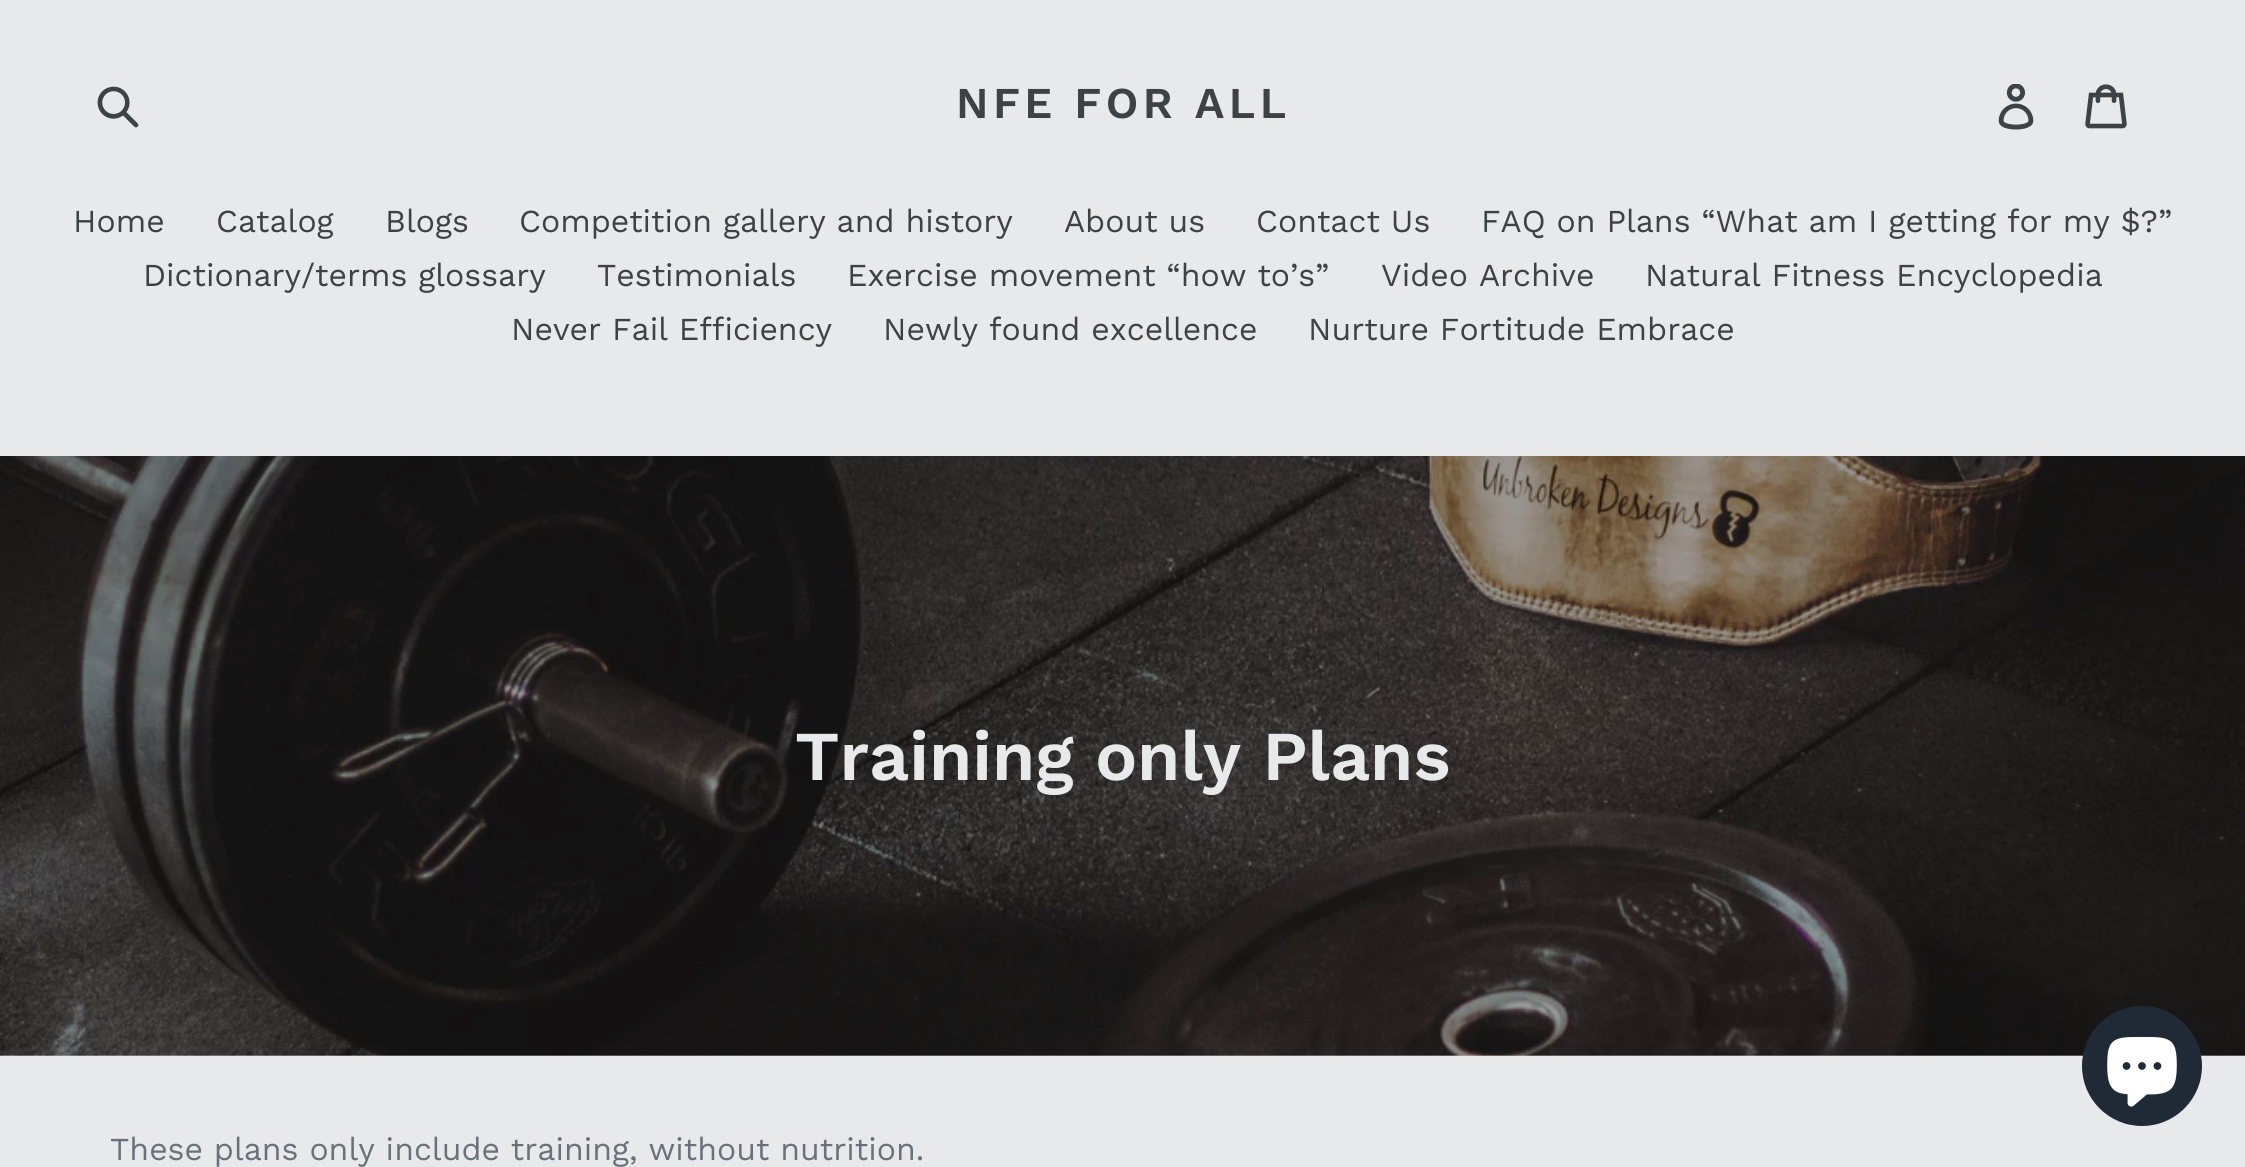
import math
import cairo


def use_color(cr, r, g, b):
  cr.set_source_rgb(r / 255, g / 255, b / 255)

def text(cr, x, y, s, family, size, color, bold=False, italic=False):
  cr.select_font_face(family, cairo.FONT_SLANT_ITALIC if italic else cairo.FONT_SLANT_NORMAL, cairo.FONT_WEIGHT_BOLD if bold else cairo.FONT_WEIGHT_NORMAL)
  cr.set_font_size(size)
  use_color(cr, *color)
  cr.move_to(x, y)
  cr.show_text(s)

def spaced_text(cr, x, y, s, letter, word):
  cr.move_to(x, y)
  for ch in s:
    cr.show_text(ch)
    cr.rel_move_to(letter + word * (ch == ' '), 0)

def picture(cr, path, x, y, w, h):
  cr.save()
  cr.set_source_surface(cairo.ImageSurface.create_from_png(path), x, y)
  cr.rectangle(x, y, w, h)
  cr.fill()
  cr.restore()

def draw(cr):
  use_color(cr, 232, 233, 235)
  cr.paint()
  picture(cr, "img_01.png", 97, 86, 42, 42)
  picture(cr, "img_02.png", 1998, 84, 36, 46)
  picture(cr, "img_03.png", 2085, 84, 42, 45)
  picture(cr, "img_04.png", 0, 456, 2245, 600)
  use_color(cr, 32, 42, 54)
  cr.arc(2142, 1066, 60, 0, 2 * math.pi)
  cr.fill()
  picture(cr, "img_05.png", 2107, 1037, 70, 70)
  cr.select_font_face("Work Sans SemiBold")
  cr.set_font_size(44)
  use_color(cr, 61, 66, 70)
  spaced_text(cr, 956, 118, "NFE FOR ALL", 4.4, 0)
  text(cr, 73, 232, "Home", "Work Sans", 32, (61, 66, 70))
  text(cr, 216, 232, "Catalog", "Work Sans", 32, (61, 66, 70))
  text(cr, 385, 232, "Blogs", "Work Sans", 32, (61, 66, 70))
  text(cr, 519, 232, "Competition gallery and history", "Work Sans", 32, (61, 66, 70))
  text(cr, 1064, 232, "About us", "Work Sans", 32, (61, 66, 70))
  text(cr, 1256, 232, "Contact Us", "Work Sans", 32, (61, 66, 70))
  text(cr, 1481, 232, "FAQ on Plans “What am I getting for my $?”", "Work Sans", 32, (61, 66, 70))
  text(cr, 143, 286, "Dictionary/terms glossary", "Work Sans", 32, (61, 66, 70))
  text(cr, 597, 286, "Testimonials", "Work Sans", 32, (61, 66, 70))
  text(cr, 847, 286, "Exercise movement “how to’s”", "Work Sans", 32, (61, 66, 70))
  text(cr, 1381, 286, "Video Archive", "Work Sans", 32, (61, 66, 70))
  text(cr, 1645, 286, "Natural Fitness Encyclopedia", "Work Sans", 32, (61, 66, 70))
  text(cr, 511, 340, "Never Fail Efficiency", "Work Sans", 32, (61, 66, 70))
  text(cr, 883, 340, "Newly found excellence", "Work Sans", 32, (61, 66, 70))
  text(cr, 1308, 340, "Nurture Fortitude Embrace", "Work Sans", 32, (61, 66, 70))
  text(cr, 795, 780, "Training only Plans", "Work Sans SemiBold", 70, (232, 233, 235))
  text(cr, 110, 1160, "These plans only include training, without nutrition.", "Work Sans", 32, (105, 114, 123))


surface = cairo.ImageSurface(cairo.FORMAT_RGB24, 2245, 1167)
cr = cairo.Context(surface)
options = cairo.FontOptions()
options.set_hint_metrics(cairo.HINT_METRICS_OFF)
options.set_hint_style(cairo.HINT_STYLE_NONE)
cr.set_font_options(options)
cr.set_miter_limit(4)
draw(cr)
surface.write_to_png("out.png")
